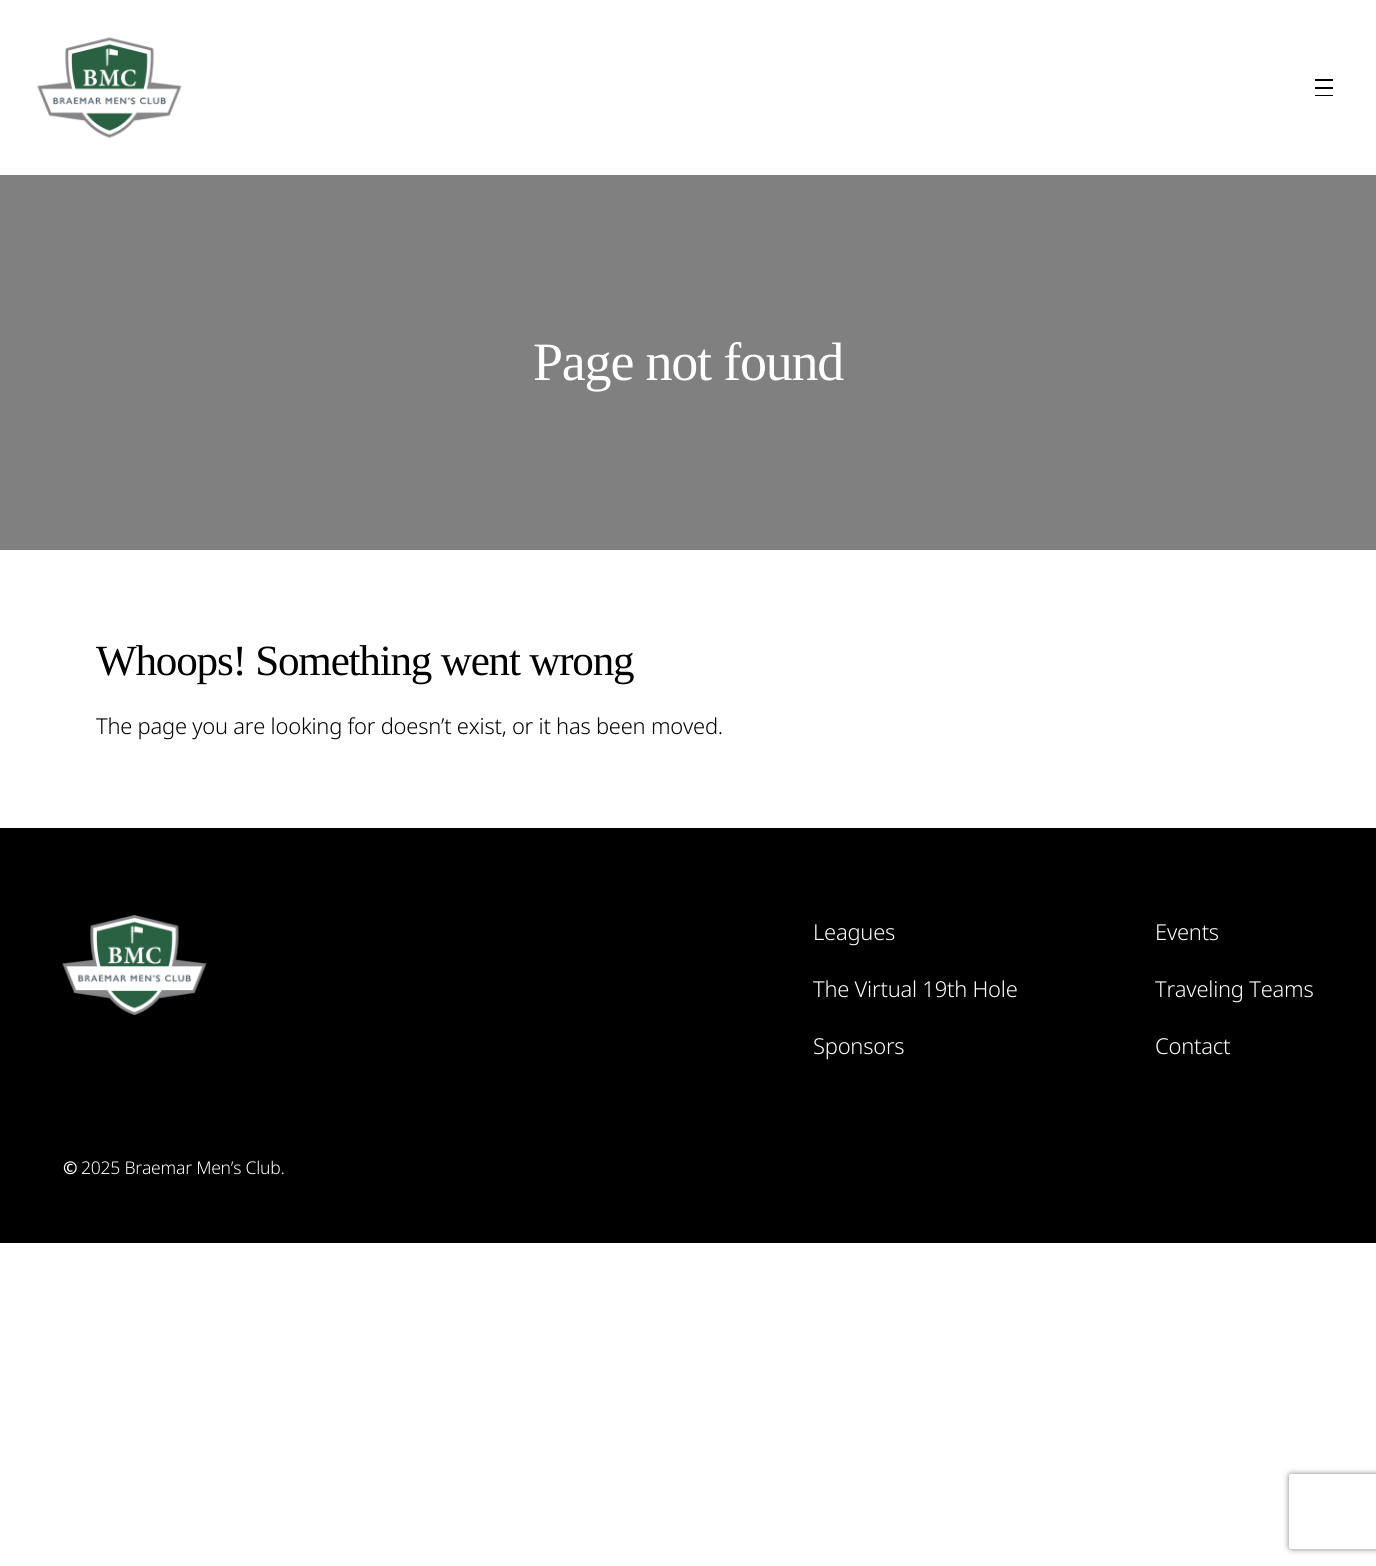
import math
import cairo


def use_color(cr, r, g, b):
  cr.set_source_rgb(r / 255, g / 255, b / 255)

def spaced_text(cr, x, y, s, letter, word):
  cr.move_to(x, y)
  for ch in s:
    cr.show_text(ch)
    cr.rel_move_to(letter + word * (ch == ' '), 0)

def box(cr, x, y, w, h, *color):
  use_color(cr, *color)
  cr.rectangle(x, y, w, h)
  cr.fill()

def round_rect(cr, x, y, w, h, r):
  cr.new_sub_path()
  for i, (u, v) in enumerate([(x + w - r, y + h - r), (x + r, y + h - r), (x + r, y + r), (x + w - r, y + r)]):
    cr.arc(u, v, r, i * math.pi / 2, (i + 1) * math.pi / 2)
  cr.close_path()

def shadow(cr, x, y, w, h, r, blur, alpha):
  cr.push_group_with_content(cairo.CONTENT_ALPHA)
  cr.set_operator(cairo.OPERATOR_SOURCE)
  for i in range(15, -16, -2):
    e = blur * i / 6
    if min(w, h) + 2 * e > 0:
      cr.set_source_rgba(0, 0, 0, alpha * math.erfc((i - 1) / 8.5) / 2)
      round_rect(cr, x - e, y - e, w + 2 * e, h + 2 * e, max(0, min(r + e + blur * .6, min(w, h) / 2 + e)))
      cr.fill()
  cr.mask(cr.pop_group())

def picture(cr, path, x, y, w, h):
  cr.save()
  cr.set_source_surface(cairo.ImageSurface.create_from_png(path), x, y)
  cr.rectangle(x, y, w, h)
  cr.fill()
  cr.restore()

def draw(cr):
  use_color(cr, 255, 255, 255)
  cr.paint()
  picture(cr, "img_01.png", 37, 37, 145, 101)
  box(cr, 1315, 79, 18, 2, 0, 0, 0)
  box(cr, 1315, 87, 18, 2, 0, 0, 0)
  box(cr, 1315, 95, 18, 1, 0, 0, 0)
  box(cr, 0, 175, 1376, 375, 128, 128, 128)
  box(cr, 0, 828, 1376, 415, 0, 0, 0)
  picture(cr, "img_02.png", 62, 915, 145, 100)
  cr.save()
  cr.set_fill_rule(cairo.FILL_RULE_EVEN_ODD)
  cr.new_path()
  cr.move_to(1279, 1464)
  cr.line_to(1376, 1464)
  cr.line_to(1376, 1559)
  cr.line_to(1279, 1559)
  cr.close_path()
  cr.move_to(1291.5, 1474)
  cr.line_to(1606.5, 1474)
  cr.curve_to(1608, 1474, 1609, 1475, 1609, 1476.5)
  cr.line_to(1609, 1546.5)
  cr.curve_to(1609, 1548, 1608, 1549, 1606.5, 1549)
  cr.line_to(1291.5, 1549)
  cr.curve_to(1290, 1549, 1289, 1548, 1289, 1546.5)
  cr.line_to(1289, 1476.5)
  cr.curve_to(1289, 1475, 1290, 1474, 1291.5, 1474)
  cr.close_path()
  cr.clip()
  use_color(cr, 128, 128, 128)
  shadow(cr, 1289, 1474, 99, 75, 2.5, 3, 1)
  cr.restore()
  cr.select_font_face("Liberation Serif")
  cr.set_font_size(54)
  use_color(cr, 255, 255, 255)
  spaced_text(cr, 533, 380, "Page not found", -1.2, 0)
  cr.set_font_size(43.1)
  use_color(cr, 0, 0, 0)
  spaced_text(cr, 96, 675, "Whoops! Something went wrong", -1.2, 0)
  cr.select_font_face("Noto Sans Light")
  cr.set_font_size(21.9)
  spaced_text(cr, 96, 734, "The page you are looking for doesn’t exist, or it has been moved.", -0.22, 0)
  use_color(cr, 255, 255, 255)
  spaced_text(cr, 813, 940, "Leagues", -0.22, 0)
  spaced_text(cr, 813, 997, "The Virtual 19th Hole", -0.22, 0)
  spaced_text(cr, 813, 1054, "Sponsors", -0.22, 0)
  spaced_text(cr, 1155, 940, "Events", -0.22, 0)
  spaced_text(cr, 1155, 997, "Traveling Teams", -0.22, 0)
  spaced_text(cr, 1155, 1054, "Contact", -0.22, 0)
  cr.select_font_face("Noto Sans", cairo.FONT_SLANT_NORMAL, cairo.FONT_WEIGHT_BOLD)
  cr.set_font_size(17.5)
  spaced_text(cr, 63, 1174, "©", -0.22, 0)
  cr.select_font_face("Noto Sans Light")
  spaced_text(cr, 81, 1174, "2025 Braemar Men’s Club.", -0.22, 0)


surface = cairo.ImageSurface(cairo.FORMAT_RGB24, 1376, 1566)
cr = cairo.Context(surface)
options = cairo.FontOptions()
options.set_hint_metrics(cairo.HINT_METRICS_OFF)
options.set_hint_style(cairo.HINT_STYLE_NONE)
cr.set_font_options(options)
cr.set_miter_limit(4)
draw(cr)
surface.write_to_png("out.png")
